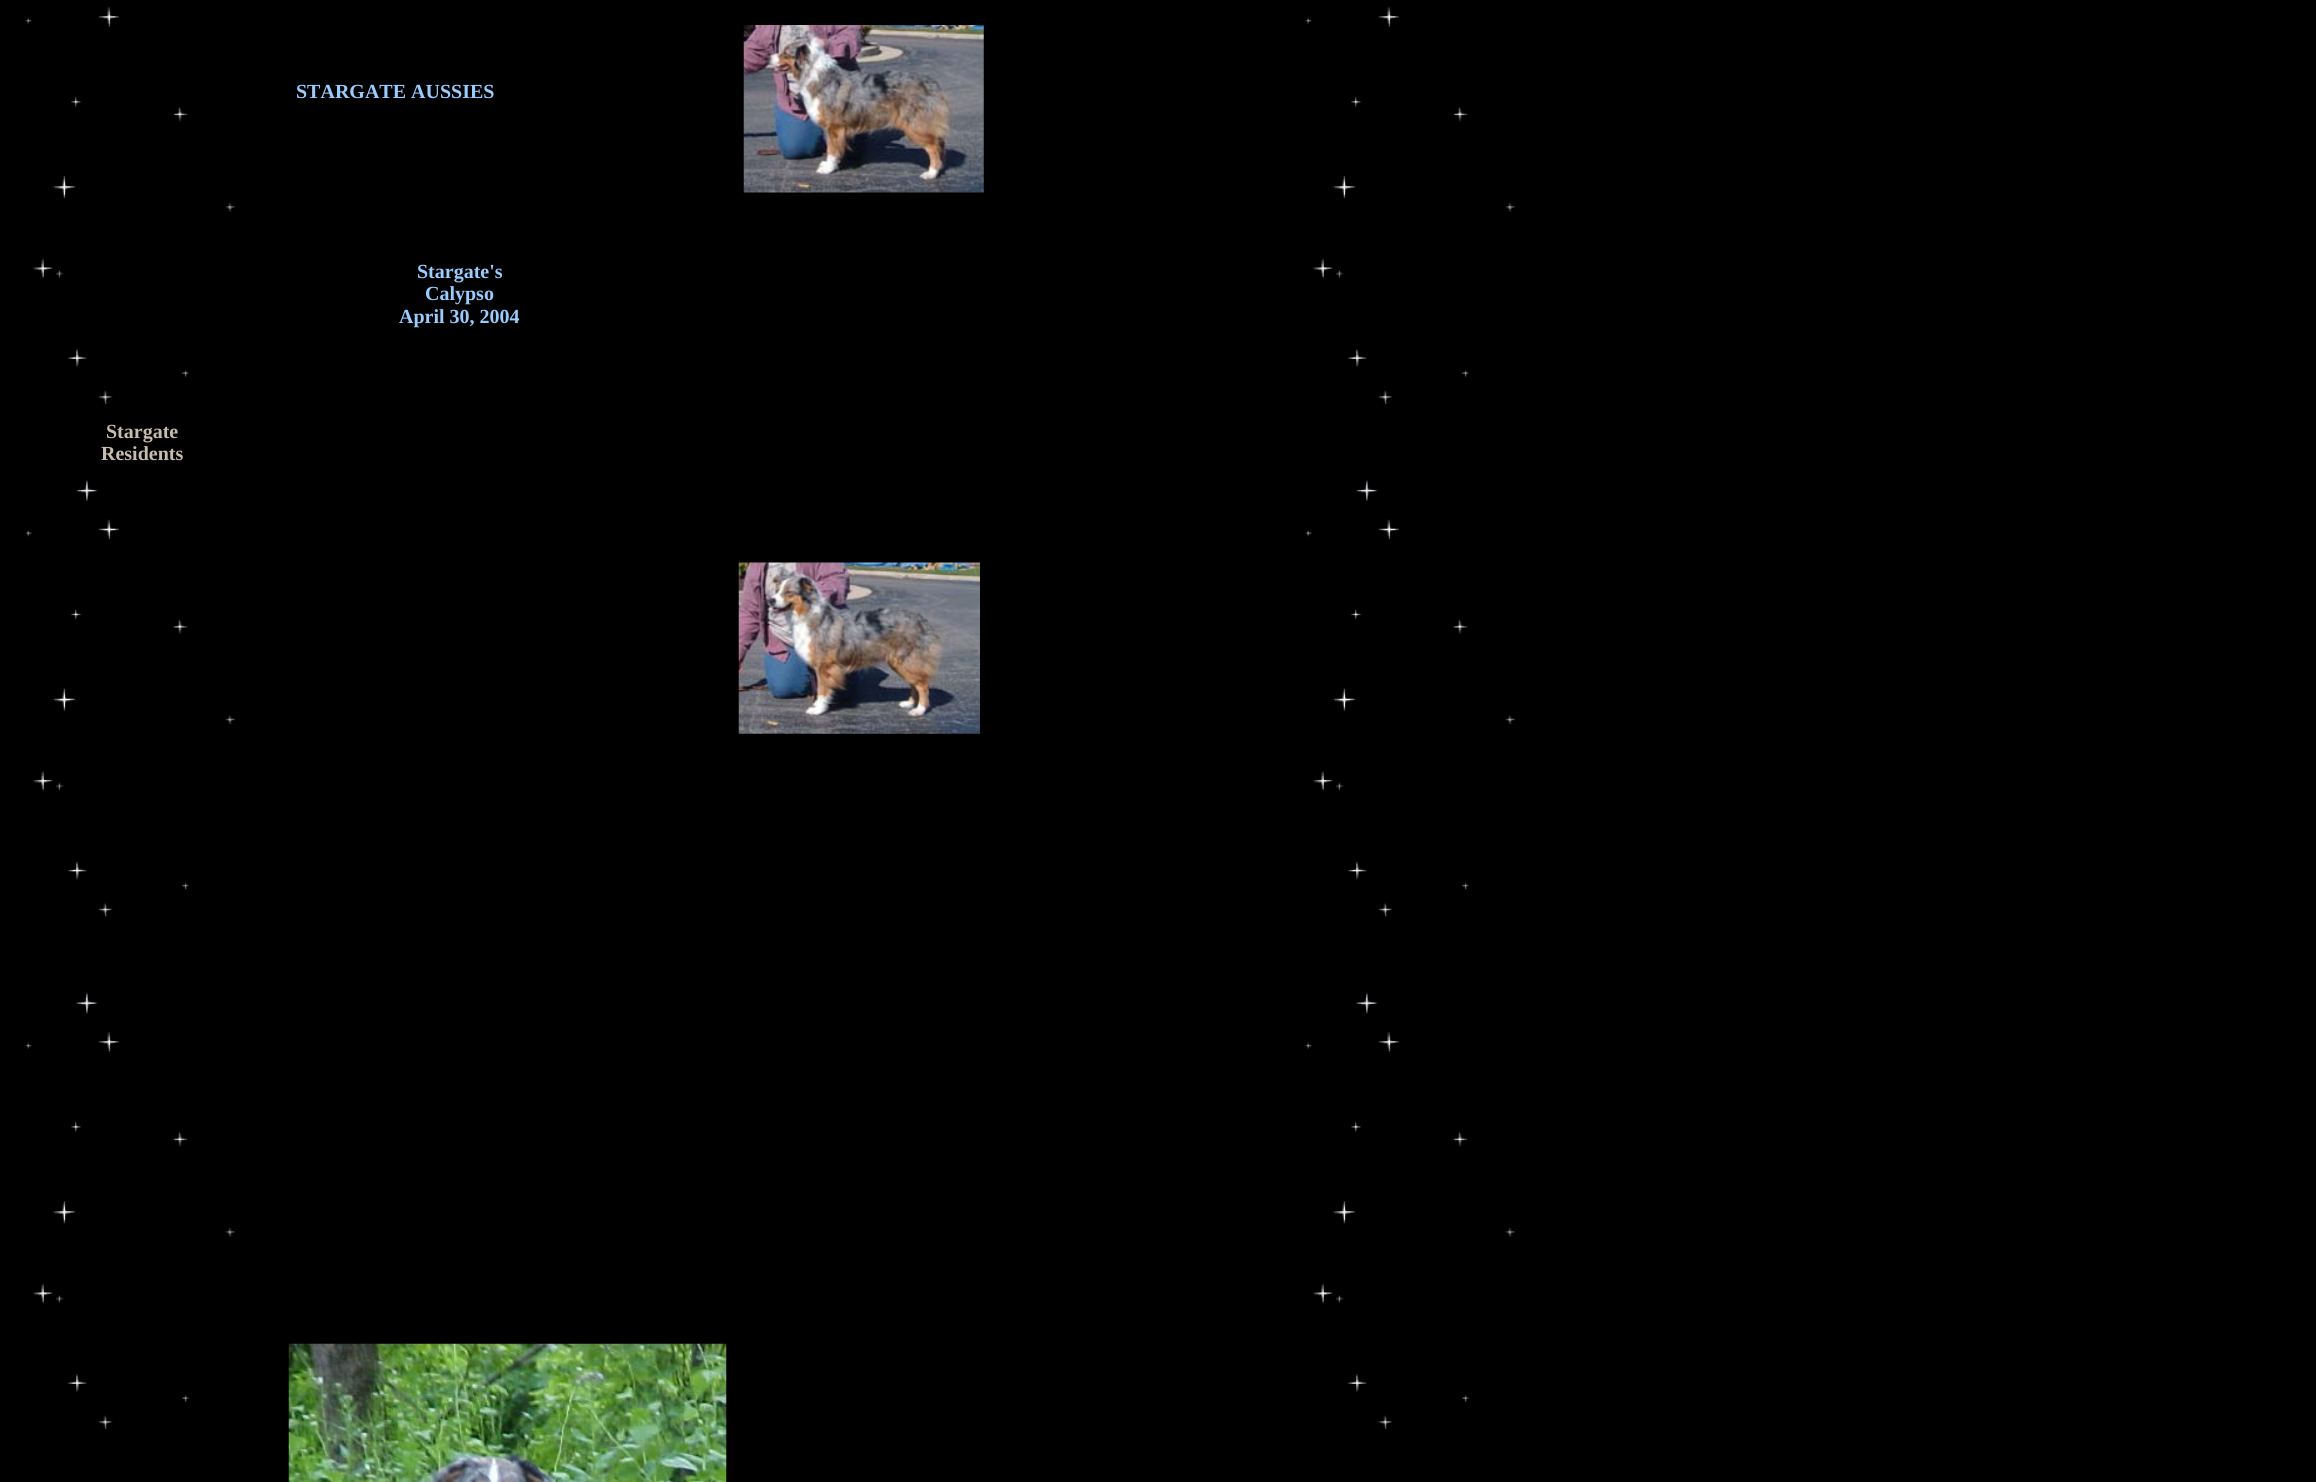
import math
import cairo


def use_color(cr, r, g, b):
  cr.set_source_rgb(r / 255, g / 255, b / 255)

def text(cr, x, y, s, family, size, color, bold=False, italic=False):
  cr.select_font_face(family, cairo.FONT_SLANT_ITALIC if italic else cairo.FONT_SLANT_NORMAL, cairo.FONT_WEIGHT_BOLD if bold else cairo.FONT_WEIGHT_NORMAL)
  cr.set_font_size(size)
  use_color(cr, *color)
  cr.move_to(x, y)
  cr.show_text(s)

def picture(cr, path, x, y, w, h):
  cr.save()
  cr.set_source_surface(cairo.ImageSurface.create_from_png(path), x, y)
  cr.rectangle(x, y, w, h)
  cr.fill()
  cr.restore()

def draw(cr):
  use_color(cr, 255, 255, 255)
  cr.paint()
  picture(cr, "img_01.png", 0, 0, 2316, 1482)
  picture(cr, "img_02.png", 743, 25, 241, 168)
  picture(cr, "img_03.png", 738, 562, 242, 172)
  picture(cr, "img_04.png", 288, 1343, 439, 139)
  text(cr, 296, 98, "STARGATE AUSSIES", "Liberation Serif", 20, (153, 204, 255), bold=True)
  text(cr, 417, 278, "Stargate's", "Liberation Serif", 20, (153, 204, 255), bold=True)
  text(cr, 425, 300, "Calypso", "Liberation Serif", 20, (153, 204, 255), bold=True)
  text(cr, 399, 323, "April 30, 2004", "Liberation Serif", 20, (153, 204, 255), bold=True)
  text(cr, 106, 438, "Stargate", "Liberation Serif", 20, (199, 189, 174), bold=True)
  text(cr, 101, 460, "Residents", "Liberation Serif", 20, (199, 189, 174), bold=True)


surface = cairo.ImageSurface(cairo.FORMAT_RGB24, 2316, 1482)
cr = cairo.Context(surface)
options = cairo.FontOptions()
options.set_hint_metrics(cairo.HINT_METRICS_OFF)
options.set_hint_style(cairo.HINT_STYLE_NONE)
cr.set_font_options(options)
cr.set_miter_limit(4)
draw(cr)
surface.write_to_png("out.png")
